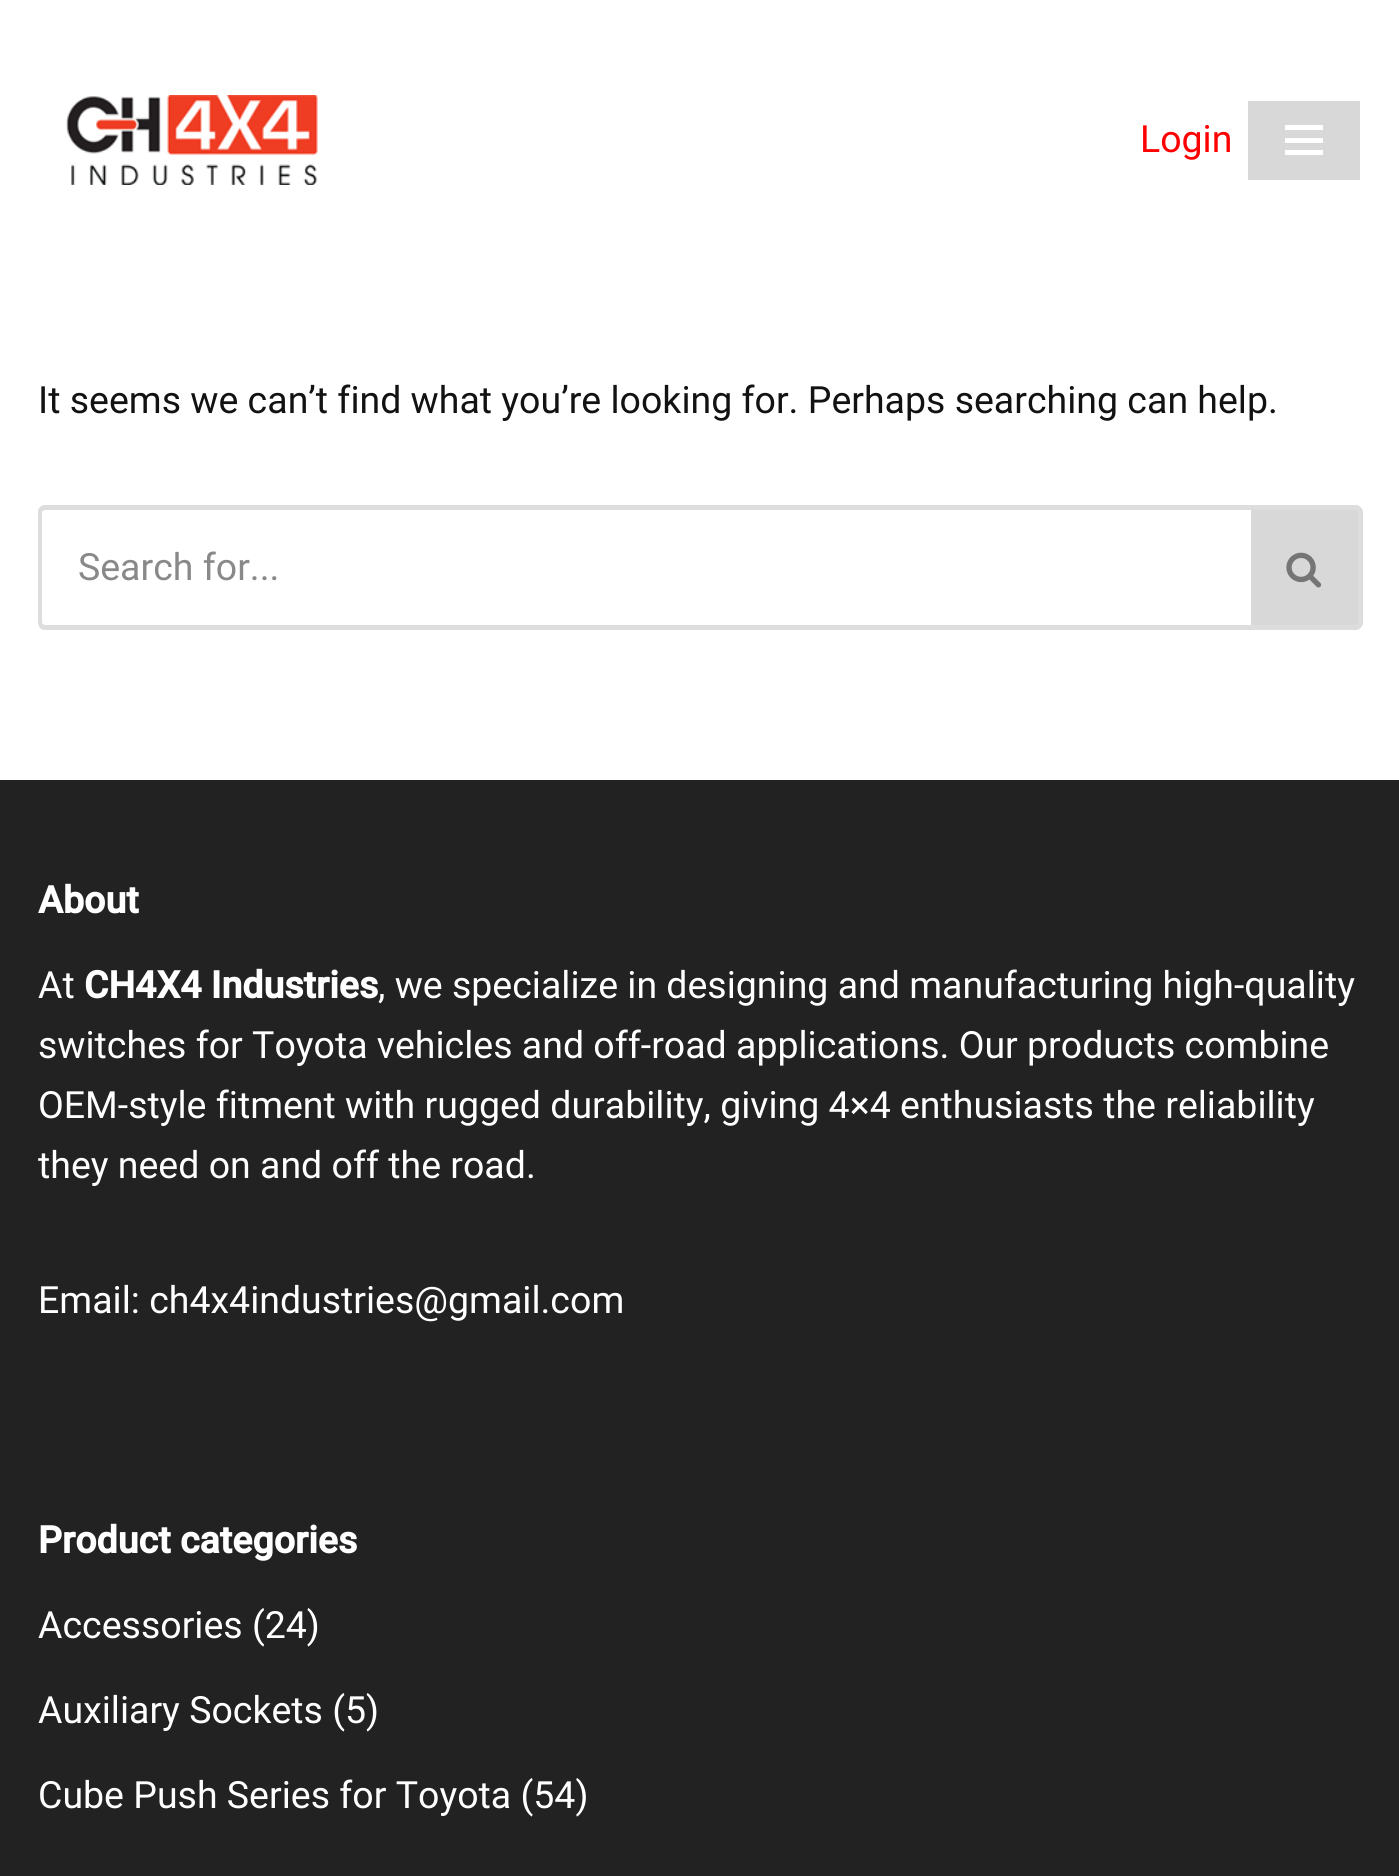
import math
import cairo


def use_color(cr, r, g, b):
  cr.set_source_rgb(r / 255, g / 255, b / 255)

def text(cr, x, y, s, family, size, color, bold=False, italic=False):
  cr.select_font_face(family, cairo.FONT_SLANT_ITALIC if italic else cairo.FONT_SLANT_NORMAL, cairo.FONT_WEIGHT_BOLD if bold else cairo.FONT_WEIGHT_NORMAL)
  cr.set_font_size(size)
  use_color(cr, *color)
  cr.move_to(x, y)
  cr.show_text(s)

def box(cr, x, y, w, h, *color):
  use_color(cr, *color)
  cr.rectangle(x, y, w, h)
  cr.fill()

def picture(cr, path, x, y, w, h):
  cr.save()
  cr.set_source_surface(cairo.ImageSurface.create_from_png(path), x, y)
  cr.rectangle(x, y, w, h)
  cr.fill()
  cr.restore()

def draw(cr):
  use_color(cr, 255, 255, 255)
  cr.paint()
  picture(cr, "img_01.png", 66, 95, 252, 90)
  box(cr, 1248, 101, 112, 79, 216, 216, 216)
  box(cr, 1285, 125, 38, 5, 255, 255, 255)
  box(cr, 1285, 138, 38, 5, 255, 255, 255)
  box(cr, 1285, 150, 38, 5, 255, 255, 255)
  use_color(cr, 221, 221, 221)
  cr.set_fill_rule(cairo.FILL_RULE_EVEN_ODD)
  cr.new_path()
  cr.move_to(45, 505)
  cr.line_to(1250, 505)
  cr.line_to(1250, 630)
  cr.line_to(45, 630)
  cr.curve_to(41, 630, 38, 627, 38, 622)
  cr.line_to(38, 512)
  cr.curve_to(38, 508, 41, 505, 45, 505)
  cr.close_path()
  cr.move_to(45, 510)
  cr.line_to(1250, 510)
  cr.line_to(1250, 625)
  cr.line_to(45, 625)
  cr.curve_to(44, 625, 42, 624, 42, 622)
  cr.line_to(42, 512)
  cr.curve_to(42, 511, 44, 510, 45, 510)
  cr.close_path()
  cr.fill()
  use_color(cr, 216, 216, 216)
  cr.new_path()
  cr.move_to(1250, 505)
  cr.line_to(1355, 505)
  cr.curve_to(1359.5, 505, 1363, 508.5, 1363, 513)
  cr.line_to(1363, 622)
  cr.curve_to(1363, 626.5, 1359.5, 630, 1355, 630)
  cr.line_to(1250, 630)
  cr.close_path()
  cr.fill()
  use_color(cr, 221, 221, 221)
  cr.new_path()
  cr.move_to(1250, 505)
  cr.line_to(1355, 505)
  cr.curve_to(1359, 505, 1362, 508, 1362, 512)
  cr.line_to(1362, 622)
  cr.curve_to(1362, 627, 1359, 630, 1355, 630)
  cr.line_to(1250, 630)
  cr.close_path()
  cr.move_to(1250, 510)
  cr.line_to(1355, 510)
  cr.curve_to(1356, 510, 1358, 511, 1358, 512)
  cr.line_to(1358, 622)
  cr.curve_to(1358, 624, 1356, 625, 1355, 625)
  cr.line_to(1250, 625)
  cr.close_path()
  cr.fill()
  box(cr, 1250, 510, 1, 115, 255, 255, 255)
  picture(cr, "img_02.png", 1286, 552, 36, 36)
  box(cr, 0, 780, 1399, 1096, 34, 34, 34)
  text(cr, 1140, 152, "Login", "Roboto", 37.5, (255, 0, 0))
  text(cr, 38, 413, "It seems we can’t find what you’re looking for. Perhaps searching can help.", "Roboto", 37.5, (18, 18, 18))
  text(cr, 78, 580, "Search for...", "Roboto", 37.5, (137, 137, 137))
  text(cr, 38, 913, "About", "Roboto", 37.5, (255, 255, 255), bold=True)
  text(cr, 38, 998, "At", "Roboto", 37.5, (255, 255, 255))
  text(cr, 84, 998, "CH4X4 Industries", "Roboto", 37.5, (255, 255, 255), bold=True)
  text(cr, 378, 998, ", we specialize in designing and manufacturing high-quality", "Roboto", 37.5, (255, 255, 255))
  text(cr, 38, 1058, "switches for Toyota vehicles and off-road applications. Our products combine", "Roboto", 37.5, (255, 255, 255))
  text(cr, 38, 1118, "OEM-style fitment with rugged durability, giving 4×4 enthusiasts the reliability", "Roboto", 37.5, (255, 255, 255))
  text(cr, 38, 1178, "they need on and off the road.", "Roboto", 37.5, (255, 255, 255))
  text(cr, 38, 1313, "Email: ch4x4industries@gmail.com", "Roboto", 37.5, (255, 255, 255))
  text(cr, 38, 1553, "Product categories", "Roboto", 37.5, (255, 255, 255), bold=True)
  text(cr, 38, 1638, "Accessories (24)", "Roboto", 37.5, (255, 255, 255))
  text(cr, 38, 1723, "Auxiliary Sockets (5)", "Roboto", 37.5, (255, 255, 255))
  text(cr, 38, 1808, "Cube Push Series for Toyota (54)", "Roboto", 37.5, (255, 255, 255))


surface = cairo.ImageSurface(cairo.FORMAT_RGB24, 1399, 1876)
cr = cairo.Context(surface)
options = cairo.FontOptions()
options.set_hint_metrics(cairo.HINT_METRICS_OFF)
options.set_hint_style(cairo.HINT_STYLE_NONE)
cr.set_font_options(options)
cr.set_miter_limit(4)
draw(cr)
surface.write_to_png("out.png")
